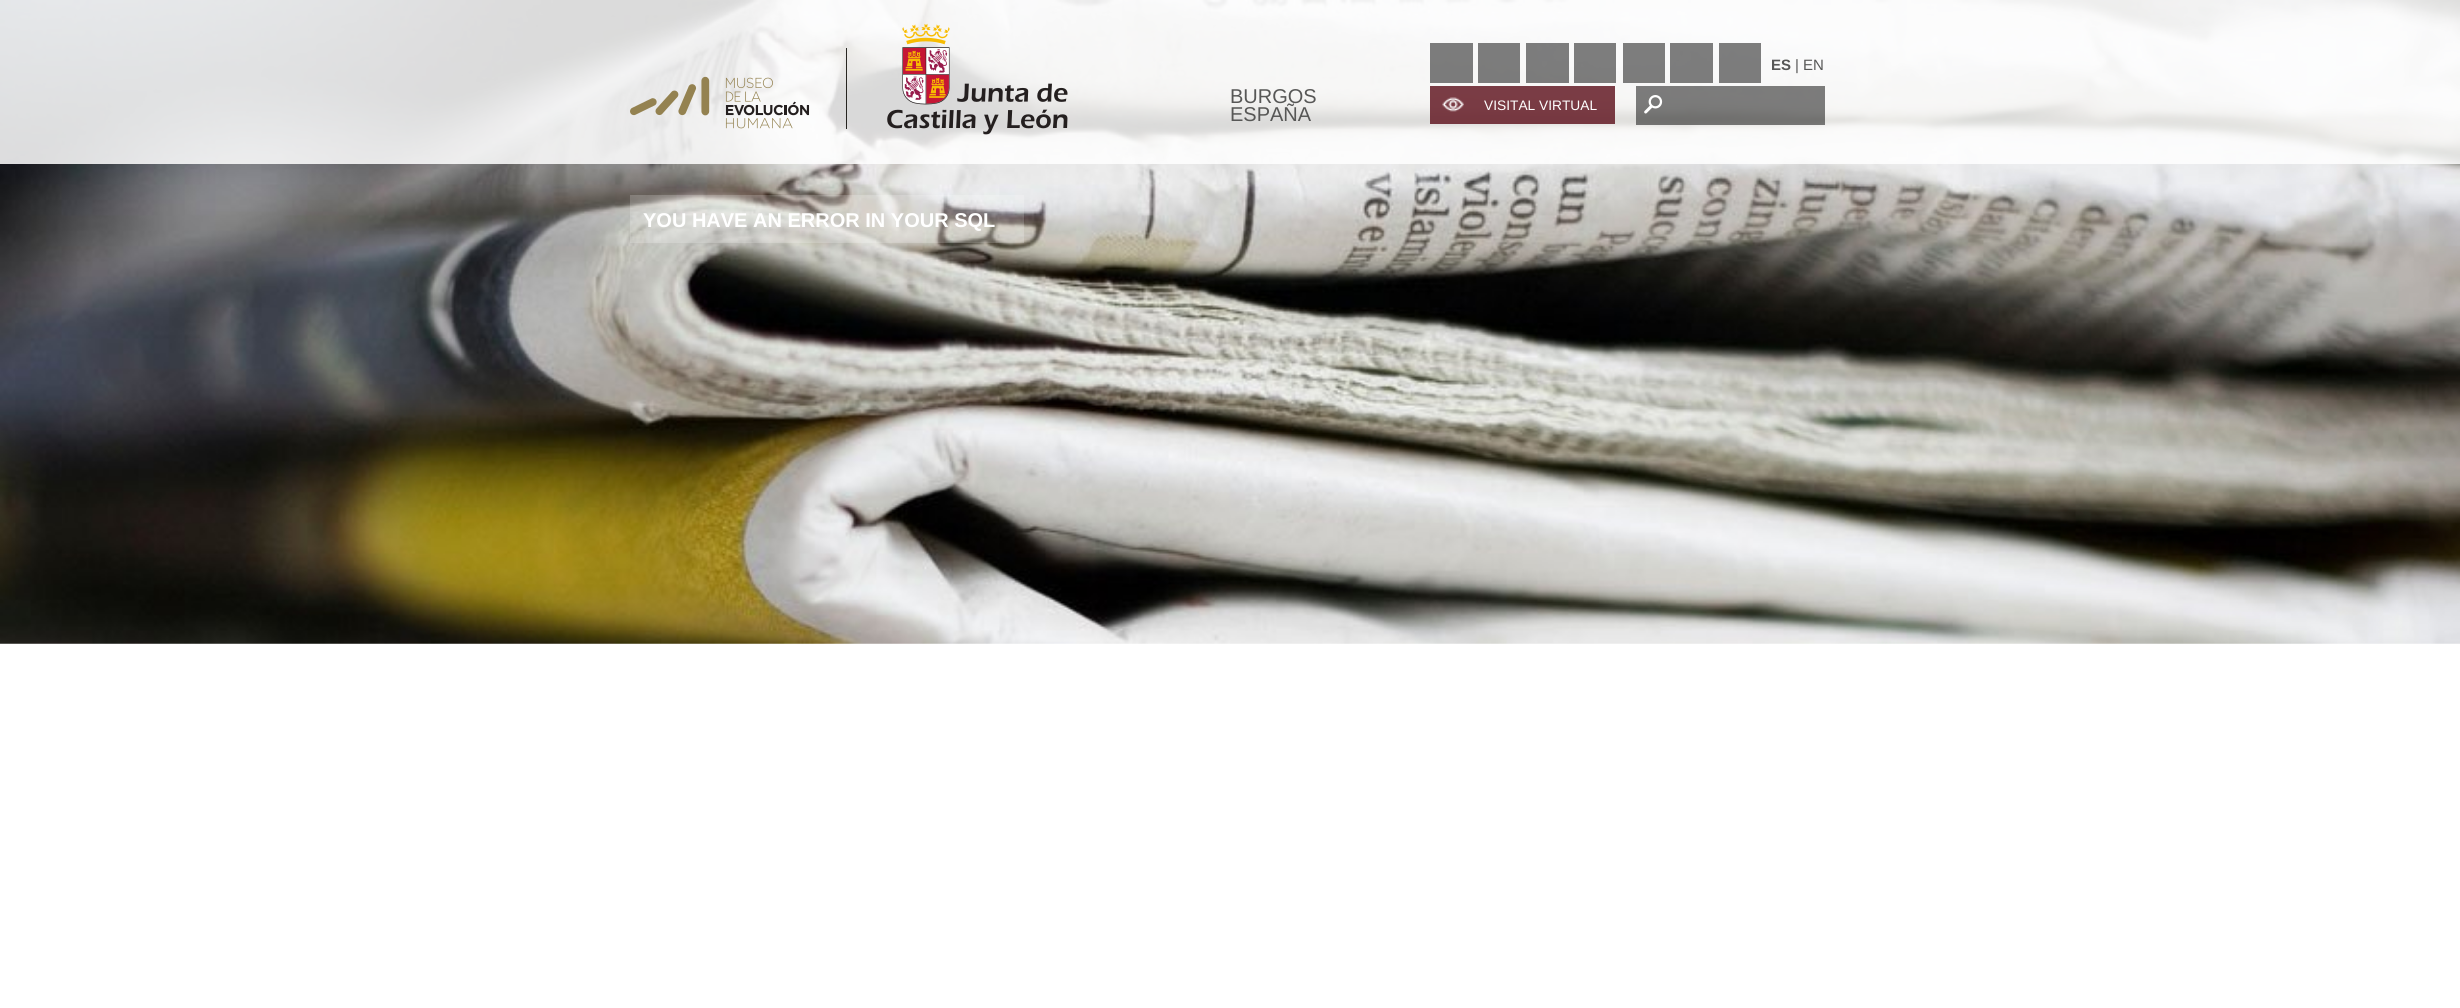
import math
import cairo


def use_color(cr, r, g, b):
  cr.set_source_rgb(r / 255, g / 255, b / 255)

def text(cr, x, y, s, family, size, color, bold=False, italic=False):
  cr.select_font_face(family, cairo.FONT_SLANT_ITALIC if italic else cairo.FONT_SLANT_NORMAL, cairo.FONT_WEIGHT_BOLD if bold else cairo.FONT_WEIGHT_NORMAL)
  cr.set_font_size(size)
  use_color(cr, *color)
  cr.move_to(x, y)
  cr.show_text(s)

def picture(cr, path, x, y, w, h):
  cr.save()
  cr.set_source_surface(cairo.ImageSurface.create_from_png(path), x, y)
  cr.rectangle(x, y, w, h)
  cr.fill()
  cr.restore()

def draw(cr):
  use_color(cr, 255, 255, 255)
  cr.paint()
  picture(cr, "img_01.png", 0, 0, 2460, 644)
  cr.set_source_rgba(1, 1, 1, 0.85)
  cr.rectangle(0, 0, 2460, 164)
  cr.fill()
  picture(cr, "img_02.png", 630, 23, 438, 112)
  cr.set_source_rgba(0, 0, 0, 0.5)
  cr.rectangle(1430, 43, 43, 40)
  cr.fill()
  cr.rectangle(1478, 43, 42, 40)
  cr.fill()
  cr.rectangle(1526, 43, 43, 40)
  cr.fill()
  cr.rectangle(1574, 43, 42, 40)
  cr.fill()
  cr.rectangle(1623, 43, 42, 40)
  cr.fill()
  cr.rectangle(1670, 43, 43, 40)
  cr.fill()
  cr.rectangle(1719, 43, 42, 40)
  cr.fill()
  cr.rectangle(1430, 86, 185, 38)
  cr.fill()
  cr.set_source_rgba(0.478, 0.129, 0.18, 0.7)
  cr.rectangle(1430, 86, 185, 38)
  cr.fill()
  picture(cr, "img_03.png", 1442, 97, 22, 15)
  cr.set_source_rgba(0, 0, 0, 0.5)
  cr.rectangle(1636, 86, 189, 39)
  cr.fill()
  picture(cr, "img_04.png", 1644, 95, 19, 19)
  cr.set_source_rgba(1, 1, 1, 0.2)
  cr.rectangle(630, 195, 394, 48)
  cr.fill()
  text(cr, 1230, 103, "BURGOS", "Liberation Sans", 20, (87, 87, 86))
  text(cr, 1230, 121, "ESPAÑA", "Liberation Sans", 20, (87, 87, 86))
  text(cr, 1771, 70, "ES", "Liberation Sans", 15, (87, 87, 86), bold=True)
  text(cr, 1795, 70, "| EN", "Liberation Sans", 15, (87, 87, 86))
  text(cr, 1484, 110, "VISITAL VIRTUAL", "Liberation Sans", 13.75, (255, 255, 255))
  text(cr, 643, 227, "YOU HAVE AN ERROR IN YOUR SQL", "Liberation Sans", 20, (255, 255, 255), bold=True)


surface = cairo.ImageSurface(cairo.FORMAT_RGB24, 2460, 1008)
cr = cairo.Context(surface)
options = cairo.FontOptions()
options.set_hint_metrics(cairo.HINT_METRICS_OFF)
options.set_hint_style(cairo.HINT_STYLE_NONE)
cr.set_font_options(options)
cr.set_miter_limit(4)
draw(cr)
surface.write_to_png("out.png")
